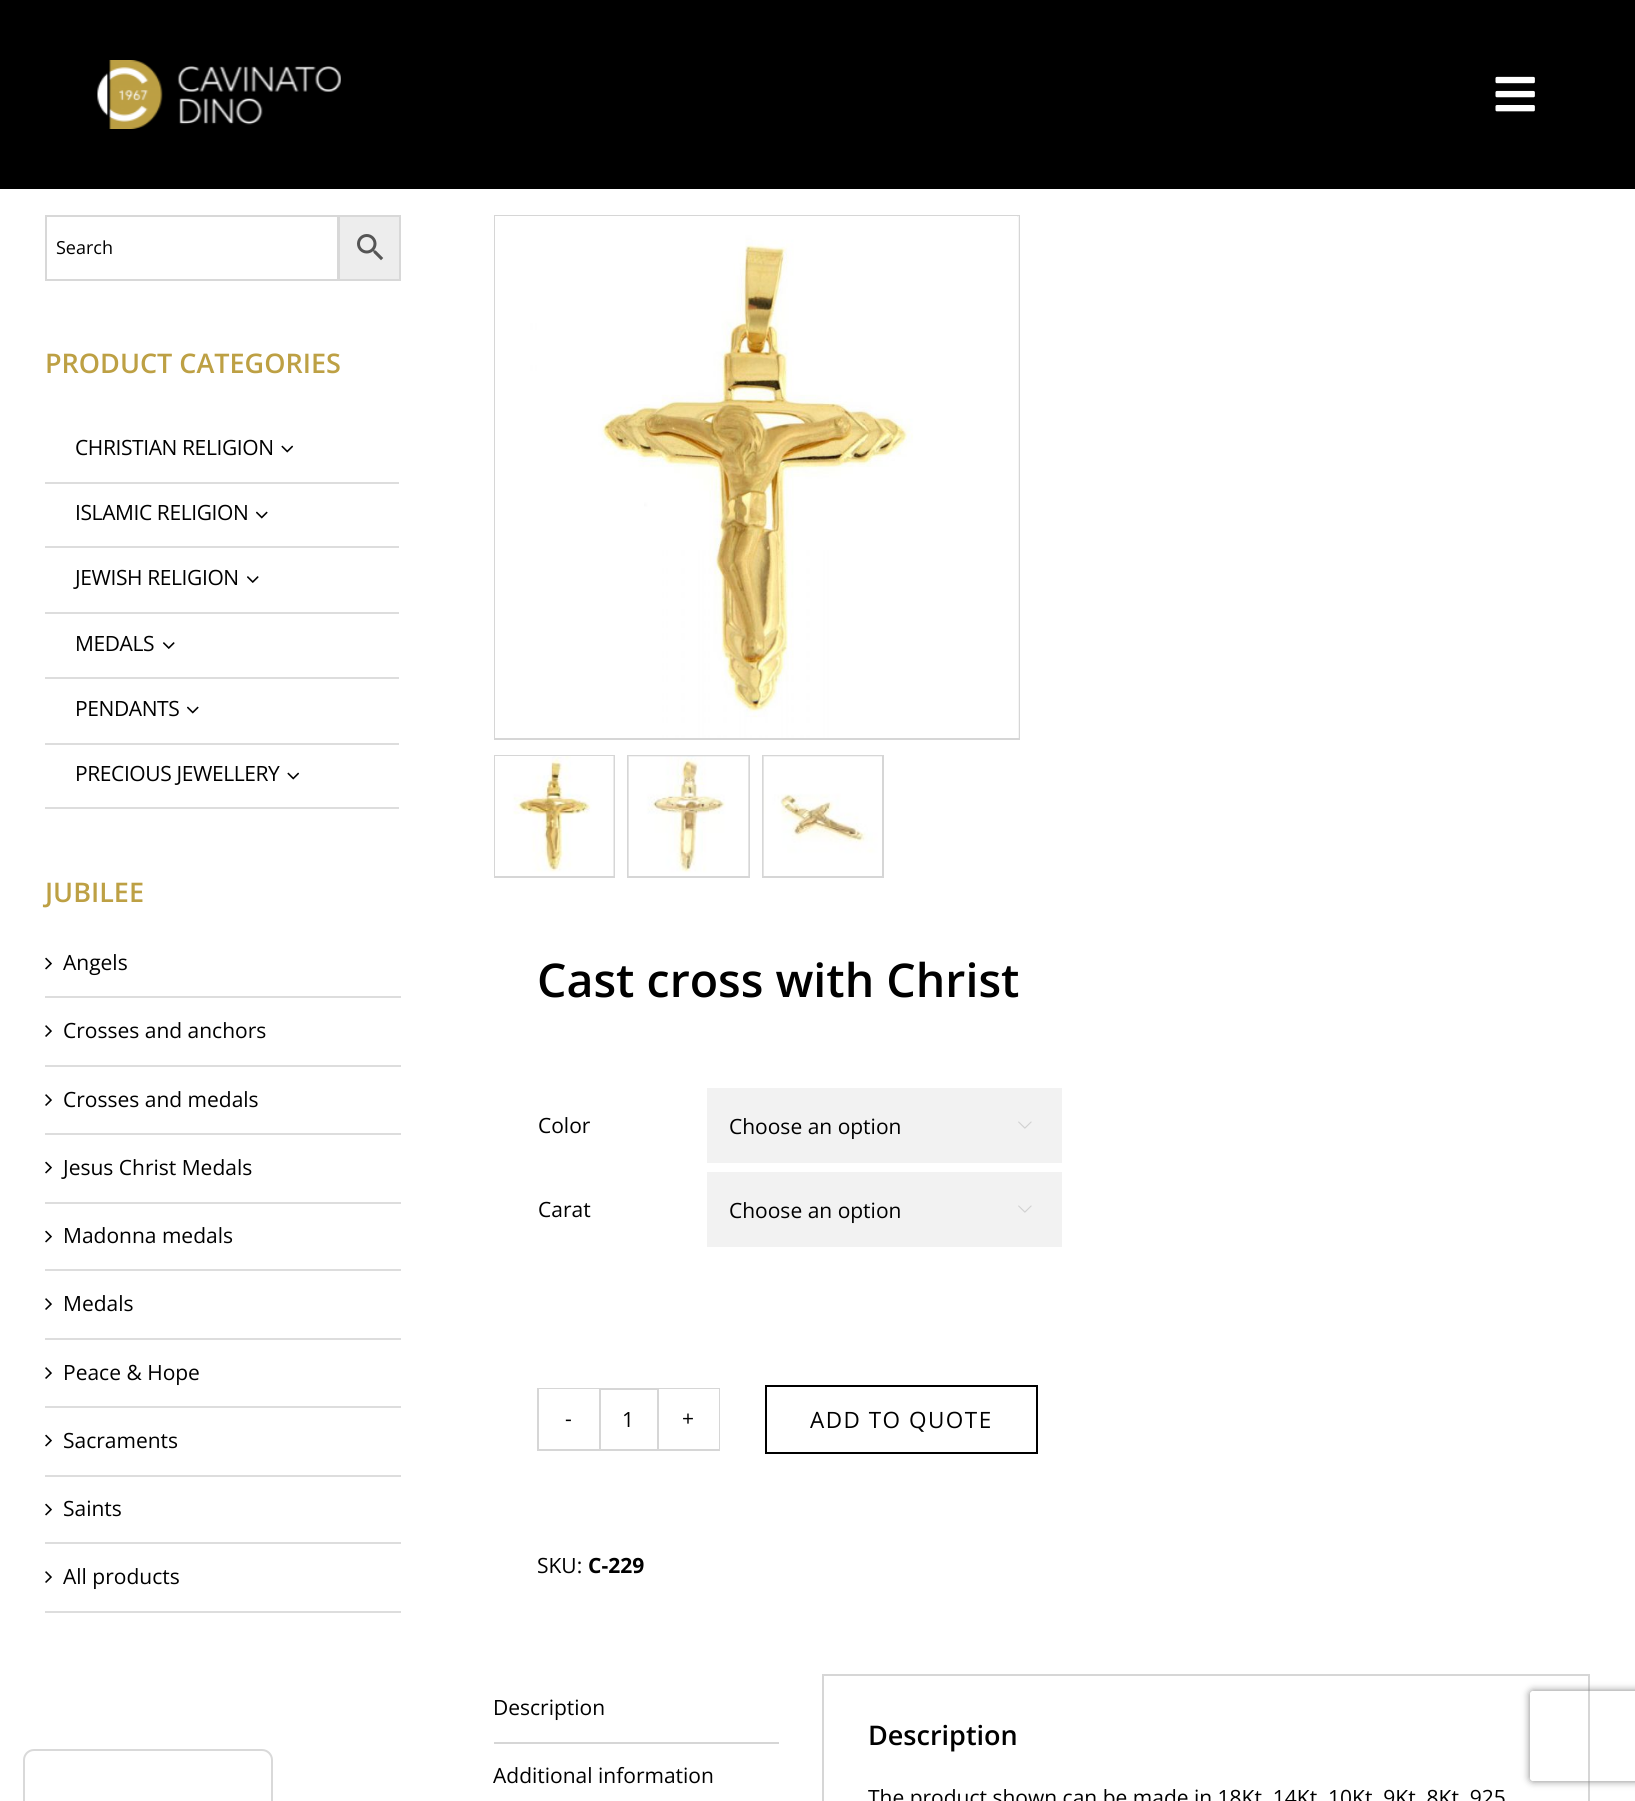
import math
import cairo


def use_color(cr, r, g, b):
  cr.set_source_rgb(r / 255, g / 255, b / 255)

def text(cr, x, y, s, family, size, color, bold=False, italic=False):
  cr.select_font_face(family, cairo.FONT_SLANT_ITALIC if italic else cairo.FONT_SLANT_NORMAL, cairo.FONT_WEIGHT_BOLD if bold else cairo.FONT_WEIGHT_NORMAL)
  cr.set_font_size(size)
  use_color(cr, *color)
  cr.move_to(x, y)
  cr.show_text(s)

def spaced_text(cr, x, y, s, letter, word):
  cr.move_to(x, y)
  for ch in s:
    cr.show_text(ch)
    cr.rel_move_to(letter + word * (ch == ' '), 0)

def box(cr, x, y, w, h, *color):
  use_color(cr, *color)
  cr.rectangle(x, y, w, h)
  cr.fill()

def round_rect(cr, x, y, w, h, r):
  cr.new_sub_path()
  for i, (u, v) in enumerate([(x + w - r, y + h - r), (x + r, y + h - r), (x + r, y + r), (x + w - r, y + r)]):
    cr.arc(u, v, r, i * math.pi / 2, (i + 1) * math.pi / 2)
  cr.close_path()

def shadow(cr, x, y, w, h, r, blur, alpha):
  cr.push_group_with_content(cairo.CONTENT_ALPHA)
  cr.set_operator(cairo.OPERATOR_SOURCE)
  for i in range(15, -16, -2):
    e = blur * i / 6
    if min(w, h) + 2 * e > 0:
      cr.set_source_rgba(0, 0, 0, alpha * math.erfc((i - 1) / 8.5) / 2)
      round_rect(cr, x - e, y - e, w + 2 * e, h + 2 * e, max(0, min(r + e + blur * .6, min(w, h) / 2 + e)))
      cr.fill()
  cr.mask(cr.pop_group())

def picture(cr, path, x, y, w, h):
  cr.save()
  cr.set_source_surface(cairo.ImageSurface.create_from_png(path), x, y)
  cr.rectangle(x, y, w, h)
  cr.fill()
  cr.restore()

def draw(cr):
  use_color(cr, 255, 255, 255)
  cr.paint()
  box(cr, 0, 0, 1635, 189, 0, 0, 0)
  picture(cr, "img_01.png", 97, 60, 244, 69)
  picture(cr, "img_02.png", 1495, 76, 40, 36)
  use_color(cr, 237, 237, 237)
  cr.rectangle(339, 216, 61, 64)
  cr.fill_preserve()
  use_color(cr, 216, 216, 216)
  cr.stroke()
  cr.rectangle(46, 216, 292, 64)
  cr.stroke()
  picture(cr, "img_03.png", 357, 234, 27, 27)
  box(cr, 45, 482, 354, 2, 221, 221, 221)
  picture(cr, "img_04.png", 281, 445, 13, 8)
  box(cr, 45, 546, 354, 2, 221, 221, 221)
  picture(cr, "img_05.png", 256, 511, 12, 8)
  box(cr, 45, 612, 354, 2, 221, 221, 221)
  picture(cr, "img_06.png", 247, 576, 12, 7)
  box(cr, 45, 677, 354, 2, 221, 221, 221)
  picture(cr, "img_06.png", 163, 642, 12, 7)
  box(cr, 45, 743, 354, 2, 221, 221, 221)
  picture(cr, "img_05.png", 187, 706, 12, 8)
  box(cr, 45, 807, 354, 2, 221, 221, 221)
  picture(cr, "img_04.png", 287, 772, 13, 8)
  box(cr, 45, 996, 356, 2, 221, 221, 221)
  picture(cr, "img_07.png", 45, 957, 7, 13)
  box(cr, 45, 1065, 356, 2, 221, 221, 221)
  picture(cr, "img_08.png", 45, 1025, 7, 12)
  box(cr, 45, 1133, 356, 2, 221, 221, 221)
  picture(cr, "img_08.png", 45, 1094, 7, 12)
  box(cr, 45, 1202, 356, 2, 221, 221, 221)
  picture(cr, "img_07.png", 45, 1161, 7, 13)
  box(cr, 45, 1269, 356, 2, 221, 221, 221)
  picture(cr, "img_07.png", 45, 1230, 7, 13)
  box(cr, 45, 1338, 356, 2, 221, 221, 221)
  picture(cr, "img_08.png", 45, 1298, 7, 12)
  box(cr, 45, 1406, 356, 2, 221, 221, 221)
  picture(cr, "img_08.png", 45, 1367, 7, 12)
  box(cr, 45, 1475, 356, 2, 221, 221, 221)
  picture(cr, "img_07.png", 45, 1434, 7, 13)
  box(cr, 45, 1542, 356, 2, 221, 221, 221)
  picture(cr, "img_07.png", 45, 1503, 7, 13)
  box(cr, 45, 1611, 356, 2, 221, 221, 221)
  picture(cr, "img_08.png", 45, 1571, 7, 12)
  cr.rectangle(495, 216, 524, 523)
  use_color(cr, 214, 214, 214)
  cr.stroke()
  picture(cr, "img_09.png", 495, 216, 522, 522)
  cr.set_source_rgba(1, 1, 1, 0.75)
  cr.rectangle(1017, 216, 2, 522)
  cr.fill()
  cr.rectangle(495, 756, 119, 121)
  use_color(cr, 214, 214, 214)
  cr.stroke()
  picture(cr, "img_10.png", 495, 756, 119, 120)
  cr.rectangle(628, 756, 121, 121)
  cr.stroke()
  picture(cr, "img_11.png", 628, 756, 121, 120)
  cr.rectangle(763, 756, 120, 121)
  cr.stroke()
  picture(cr, "img_12.png", 763, 756, 119, 120)
  box(cr, 707, 1088, 355, 75, 242, 242, 242)
  picture(cr, "img_13.png", 1018, 1121, 14, 8)
  box(cr, 707, 1172, 355, 75, 242, 242, 242)
  picture(cr, "img_13.png", 1018, 1205, 14, 8)
  cr.rectangle(538, 1389, 181, 61)
  use_color(cr, 214, 214, 214)
  cr.stroke()
  box(cr, 539, 1389, 60, 1, 255, 255, 255)
  box(cr, 657, 1389, 2, 60, 214, 214, 214)
  box(cr, 599, 1389, 2, 60, 214, 214, 214)
  box(cr, 659, 1389, 60, 60, 255, 255, 255)
  cr.rectangle(766, 1386, 271, 67)
  use_color(cr, 0, 0, 0)
  cr.stroke()
  box(cr, 494, 1742, 285, 2, 214, 214, 214)
  cr.rectangle(823, 1675, 766, 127)
  cr.stroke()
  cr.save()
  cr.set_fill_rule(cairo.FILL_RULE_EVEN_ODD)
  cr.new_path()
  cr.move_to(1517, 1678)
  cr.line_to(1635, 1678)
  cr.line_to(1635, 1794)
  cr.line_to(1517, 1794)
  cr.close_path()
  cr.move_to(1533, 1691)
  cr.line_to(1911, 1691)
  cr.curve_to(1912.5, 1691, 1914, 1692.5, 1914, 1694)
  cr.line_to(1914, 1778)
  cr.curve_to(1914, 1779.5, 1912.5, 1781, 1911, 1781)
  cr.line_to(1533, 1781)
  cr.curve_to(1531.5, 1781, 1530, 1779.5, 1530, 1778)
  cr.line_to(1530, 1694)
  cr.curve_to(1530, 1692.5, 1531.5, 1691, 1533, 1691)
  cr.close_path()
  cr.clip()
  use_color(cr, 128, 128, 128)
  shadow(cr, 1530, 1691, 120, 90, 3, 4, 1)
  cr.restore()
  cr.new_path()
  cr.move_to(34, 1750)
  cr.line_to(262, 1750)
  cr.curve_to(267.5, 1750, 272, 1754.5, 272, 1760)
  cr.line_to(272, 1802)
  cr.line_to(24, 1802)
  cr.line_to(24, 1760)
  cr.curve_to(24, 1754.5, 28.5, 1750, 34, 1750)
  cr.close_path()
  use_color(cr, 217, 217, 217)
  cr.stroke()
  text(cr, 56, 254, "Search", "Open Sans", 18, (0, 0, 0))
  text(cr, 45, 373, "PRODUCT CATEGORIES", "Open Sans SemiBold", 27, (189, 160, 68))
  cr.select_font_face("Open Sans")
  cr.set_font_size(21)
  use_color(cr, 0, 0, 0)
  spaced_text(cr, 75, 455, "CHRISTIAN RELIGION", -0.4, 0)
  spaced_text(cr, 75, 520, "ISLAMIC RELIGION", -0.4, 0)
  spaced_text(cr, 75, 585, "JEWISH RELIGION", -0.4, 0)
  spaced_text(cr, 75, 651, "MEDALS", -0.4, 0)
  spaced_text(cr, 75, 716, "PENDANTS", -0.4, 0)
  spaced_text(cr, 75, 781, "PRECIOUS JEWELLERY", -0.4, 0)
  text(cr, 45, 902, "JUBILEE", "Open Sans SemiBold", 27, (189, 160, 68))
  text(cr, 63, 970, "Angels", "Open Sans", 21, (0, 0, 0))
  text(cr, 63, 1038, "Crosses and anchors", "Open Sans", 21, (0, 0, 0))
  text(cr, 63, 1107, "Crosses and medals", "Open Sans", 21, (0, 0, 0))
  text(cr, 63, 1175, "Jesus Christ Medals", "Open Sans", 21, (0, 0, 0))
  text(cr, 63, 1243, "Madonna medals", "Open Sans", 21, (0, 0, 0))
  text(cr, 63, 1311, "Medals", "Open Sans", 21, (0, 0, 0))
  text(cr, 63, 1380, "Peace & Hope", "Open Sans", 21, (0, 0, 0))
  text(cr, 63, 1448, "Sacraments", "Open Sans", 21, (0, 0, 0))
  text(cr, 63, 1516, "Saints", "Open Sans", 21, (0, 0, 0))
  text(cr, 63, 1584, "All products", "Open Sans", 21, (0, 0, 0))
  text(cr, 537, 997, "Cast cross with Christ", "Open Sans SemiBold", 46.5, (0, 0, 0))
  text(cr, 538, 1133, "Color", "Open Sans", 21, (0, 0, 0))
  text(cr, 729, 1134, "Choose an option", "Open Sans", 21, (0, 0, 0))
  text(cr, 538, 1217, "Carat", "Open Sans", 21, (0, 0, 0))
  text(cr, 729, 1218, "Choose an option", "Open Sans", 21, (0, 0, 0))
  text(cr, 565, 1426, "-", "Open Sans", 21, (0, 0, 0))
  text(cr, 622, 1427, "1", "Open Sans", 21, (0, 0, 0))
  text(cr, 682, 1426, "+", "Open Sans", 21, (0, 0, 0))
  cr.set_font_size(22.5)
  spaced_text(cr, 810, 1428, "ADD TO QUOTE", 1.5, 0)
  text(cr, 537, 1573, "SKU:", "Open Sans", 21, (0, 0, 0))
  text(cr, 588, 1573, "C-229", "Open Sans", 21, (0, 0, 0), bold=True)
  text(cr, 493, 1715, "Description", "Open Sans", 21, (0, 0, 0))
  text(cr, 493, 1783, "Additional information", "Open Sans", 21, (0, 0, 0))
  text(cr, 868, 1745, "Description", "Open Sans SemiBold", 27, (0, 0, 0))
  text(cr, 868, 1805, "The product shown can be made in 18Kt, 14Kt, 10Kt, 9Kt, 8Kt, 925", "Open Sans", 21, (0, 0, 0))


surface = cairo.ImageSurface(cairo.FORMAT_RGB24, 1635, 1801)
cr = cairo.Context(surface)
options = cairo.FontOptions()
options.set_hint_metrics(cairo.HINT_METRICS_OFF)
options.set_hint_style(cairo.HINT_STYLE_NONE)
cr.set_font_options(options)
cr.set_miter_limit(4)
draw(cr)
surface.write_to_png("out.png")
